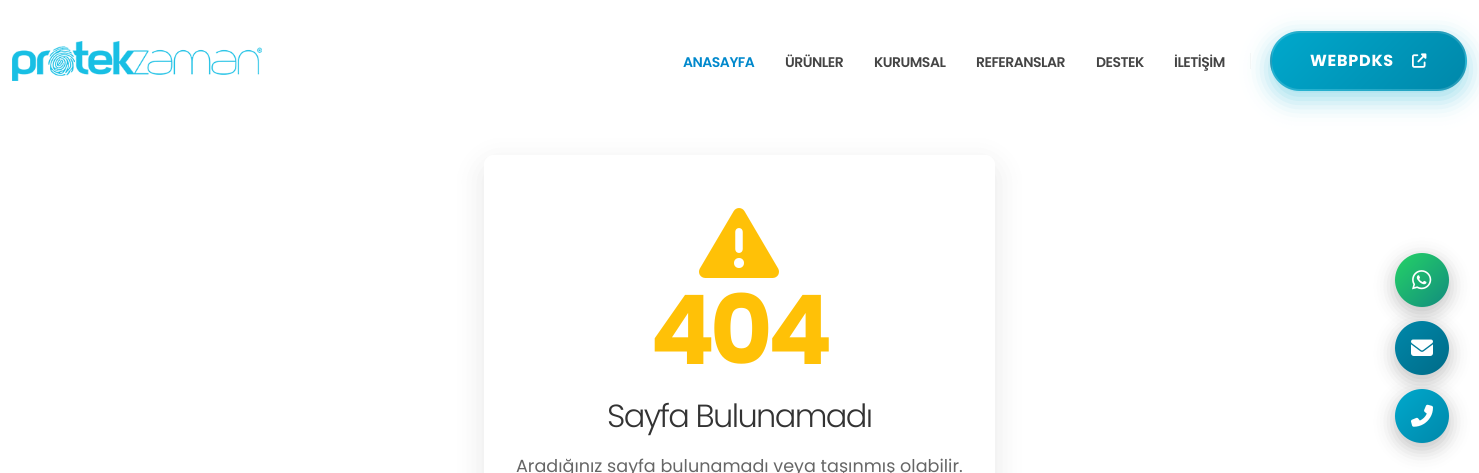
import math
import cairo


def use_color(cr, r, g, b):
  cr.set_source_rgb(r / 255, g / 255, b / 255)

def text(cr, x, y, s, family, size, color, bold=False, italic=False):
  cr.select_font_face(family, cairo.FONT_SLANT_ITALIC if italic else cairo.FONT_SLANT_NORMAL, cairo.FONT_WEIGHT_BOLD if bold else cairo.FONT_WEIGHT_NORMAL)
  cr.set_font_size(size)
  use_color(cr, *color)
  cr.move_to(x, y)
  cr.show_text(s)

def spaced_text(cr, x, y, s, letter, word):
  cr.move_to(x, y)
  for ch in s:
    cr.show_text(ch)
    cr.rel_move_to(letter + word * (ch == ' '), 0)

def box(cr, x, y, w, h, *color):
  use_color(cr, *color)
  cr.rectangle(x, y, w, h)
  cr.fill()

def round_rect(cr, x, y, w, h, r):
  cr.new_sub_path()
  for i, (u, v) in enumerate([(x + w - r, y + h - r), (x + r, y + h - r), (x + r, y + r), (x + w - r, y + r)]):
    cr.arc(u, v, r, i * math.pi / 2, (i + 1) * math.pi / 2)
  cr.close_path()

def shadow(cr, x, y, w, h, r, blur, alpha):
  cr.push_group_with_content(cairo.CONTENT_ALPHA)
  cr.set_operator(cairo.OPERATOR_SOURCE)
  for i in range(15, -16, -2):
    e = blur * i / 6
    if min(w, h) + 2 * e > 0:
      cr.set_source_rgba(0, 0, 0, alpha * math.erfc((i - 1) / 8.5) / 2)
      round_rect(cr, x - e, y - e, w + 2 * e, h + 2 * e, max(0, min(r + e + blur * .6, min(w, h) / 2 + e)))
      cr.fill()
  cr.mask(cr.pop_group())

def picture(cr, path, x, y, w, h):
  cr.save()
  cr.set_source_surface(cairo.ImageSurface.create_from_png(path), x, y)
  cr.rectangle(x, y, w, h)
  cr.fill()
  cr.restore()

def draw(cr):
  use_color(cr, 255, 255, 255)
  cr.paint()
  picture(cr, "img_01.png", 12, 41, 250, 40)
  box(cr, 1250, 53, 1, 16, 247, 247, 247)
  use_color(cr, 0, 168, 204)
  shadow(cr, 1270, 39, 197, 60, 30, 12.5, 0.4)
  cr.save()
  round_rect(cr, 1270, 31, 197, 60, 30)
  cr.clip()
  gradient = cairo.LinearGradient(1306, -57, 1431, 67)
  gradient.add_color_stop_rgba(0, 0, 0.659, 0.8, 1)
  gradient.add_color_stop_rgba(1, 0, 0.533, 0.667, 1)
  cr.set_source(gradient)
  cr.rectangle(1289, 31, 159, 2)
  cr.fill()
  gradient = cairo.LinearGradient(1113, -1.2, 1238, 123)
  gradient.add_color_stop_rgba(0, 0, 0.659, 0.8, 1)
  gradient.add_color_stop_rgba(1, 0, 0.533, 0.667, 1)
  cr.set_source(gradient)
  cr.rectangle(1270, 50, 2, 22)
  cr.fill()
  gradient = cairo.LinearGradient(1306, -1.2, 1431, 123)
  gradient.add_color_stop_rgba(0, 0, 0.659, 0.8, 1)
  gradient.add_color_stop_rgba(1, 0, 0.533, 0.667, 1)
  cr.set_source(gradient)
  cr.rectangle(1272, 33, 193, 56)
  cr.fill()
  gradient = cairo.LinearGradient(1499, -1.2, 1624, 123)
  gradient.add_color_stop_rgba(0, 0, 0.659, 0.8, 1)
  gradient.add_color_stop_rgba(1, 0, 0.533, 0.667, 1)
  cr.set_source(gradient)
  cr.rectangle(1465, 50, 2, 22)
  cr.fill()
  gradient = cairo.LinearGradient(1306, 55, 1431, 179)
  gradient.add_color_stop_rgba(0, 0, 0.659, 0.8, 1)
  gradient.add_color_stop_rgba(1, 0, 0.533, 0.667, 1)
  cr.set_source(gradient)
  cr.rectangle(1289, 89, 159, 2)
  cr.fill()
  cr.restore()
  round_rect(cr, 1271, 32, 195, 58, 29)
  cr.set_source_rgba(1, 1, 1, 0.15)
  cr.stroke()
  picture(cr, "img_02.png", 1412, 53, 15, 15)
  cr.save()
  cr.set_fill_rule(cairo.FILL_RULE_EVEN_ODD)
  cr.new_path()
  cr.move_to(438, 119)
  cr.line_to(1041, 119)
  cr.line_to(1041, 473)
  cr.line_to(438, 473)
  cr.close_path()
  cr.move_to(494, 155)
  cr.line_to(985, 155)
  cr.curve_to(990.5, 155, 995, 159.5, 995, 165)
  cr.line_to(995, 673)
  cr.curve_to(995, 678.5, 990.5, 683, 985, 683)
  cr.line_to(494, 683)
  cr.curve_to(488.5, 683, 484, 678.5, 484, 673)
  cr.line_to(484, 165)
  cr.curve_to(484, 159.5, 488.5, 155, 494, 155)
  cr.close_path()
  cr.clip()
  use_color(cr, 0, 0, 0)
  shadow(cr, 484, 165, 511, 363, 10, 15, 0.1)
  cr.restore()
  picture(cr, "img_03.png", 699, 208, 80, 70)
  use_color(cr, 0, 0, 0)
  shadow(cr, 1395, 259, 54, 54, 27, 10, 0.25)
  gradient = cairo.LinearGradient(1395, 253, 1449, 307)
  gradient.add_color_stop_rgba(0, 0.145, 0.827, 0.4, 1)
  gradient.add_color_stop_rgba(1, 0.071, 0.549, 0.494, 1)
  cr.set_source(gradient)
  cr.arc(1422, 280, 27, 0, 2 * math.pi)
  cr.fill()
  picture(cr, "img_04.png", 1412, 270, 20, 20)
  use_color(cr, 0, 0, 0)
  shadow(cr, 1395, 327, 54, 54, 27, 10, 0.25)
  gradient = cairo.LinearGradient(1395, 321, 1449, 375)
  gradient.add_color_stop_rgba(0, 0, 0.533, 0.667, 1)
  gradient.add_color_stop_rgba(1, 0, 0.42, 0.533, 1)
  cr.set_source(gradient)
  cr.arc(1422, 348, 27, 0, 2 * math.pi)
  cr.fill()
  picture(cr, "img_05.png", 1411, 339, 22, 17)
  use_color(cr, 0, 0, 0)
  shadow(cr, 1395, 395, 54, 54, 27, 10, 0.25)
  gradient = cairo.LinearGradient(1395, 389, 1449, 443)
  gradient.add_color_stop_rgba(0, 0, 0.659, 0.8, 1)
  gradient.add_color_stop_rgba(1, 0, 0.533, 0.667, 1)
  cr.set_source(gradient)
  cr.arc(1422, 416, 27, 0, 2 * math.pi)
  cr.fill()
  picture(cr, "img_06.png", 1411, 404, 22, 23)
  cr.select_font_face("Poppins SemiBold")
  cr.set_font_size(14)
  use_color(cr, 0, 136, 204)
  spaced_text(cr, 683, 67, "ANASAYFA", -0.5, 0)
  use_color(cr, 68, 68, 68)
  spaced_text(cr, 785, 67, "ÜRÜNLER", -0.5, 0)
  spaced_text(cr, 874, 67, "KURUMSAL", -0.5, 0)
  spaced_text(cr, 976, 67, "REFERANSLAR", -0.5, 0)
  spaced_text(cr, 1096, 67, "DESTEK", -0.5, 0)
  spaced_text(cr, 1174, 67, "İLETİŞİM", -0.5, 0)
  cr.select_font_face("Poppins", cairo.FONT_SLANT_NORMAL, cairo.FONT_WEIGHT_BOLD)
  cr.set_font_size(16)
  use_color(cr, 255, 255, 255)
  spaced_text(cr, 1310, 66, "WEBPDKS", 0.75, 0)
  cr.set_font_size(96)
  use_color(cr, 255, 193, 7)
  spaced_text(cr, 650, 364, "404", -5, 0)
  cr.select_font_face("Poppins Light")
  cr.set_font_size(32)
  use_color(cr, 51, 51, 51)
  spaced_text(cr, 607, 427, "Sayfa Bulunamadı", -1.6, 0)
  text(cr, 516, 472, "Aradığınız sayfa bulunamadı veya taşınmış olabilir.", "Poppins", 17.6, (102, 102, 102))


surface = cairo.ImageSurface(cairo.FORMAT_RGB24, 1479, 473)
cr = cairo.Context(surface)
options = cairo.FontOptions()
options.set_hint_metrics(cairo.HINT_METRICS_OFF)
options.set_hint_style(cairo.HINT_STYLE_NONE)
cr.set_font_options(options)
cr.set_miter_limit(4)
draw(cr)
surface.write_to_png("out.png")
